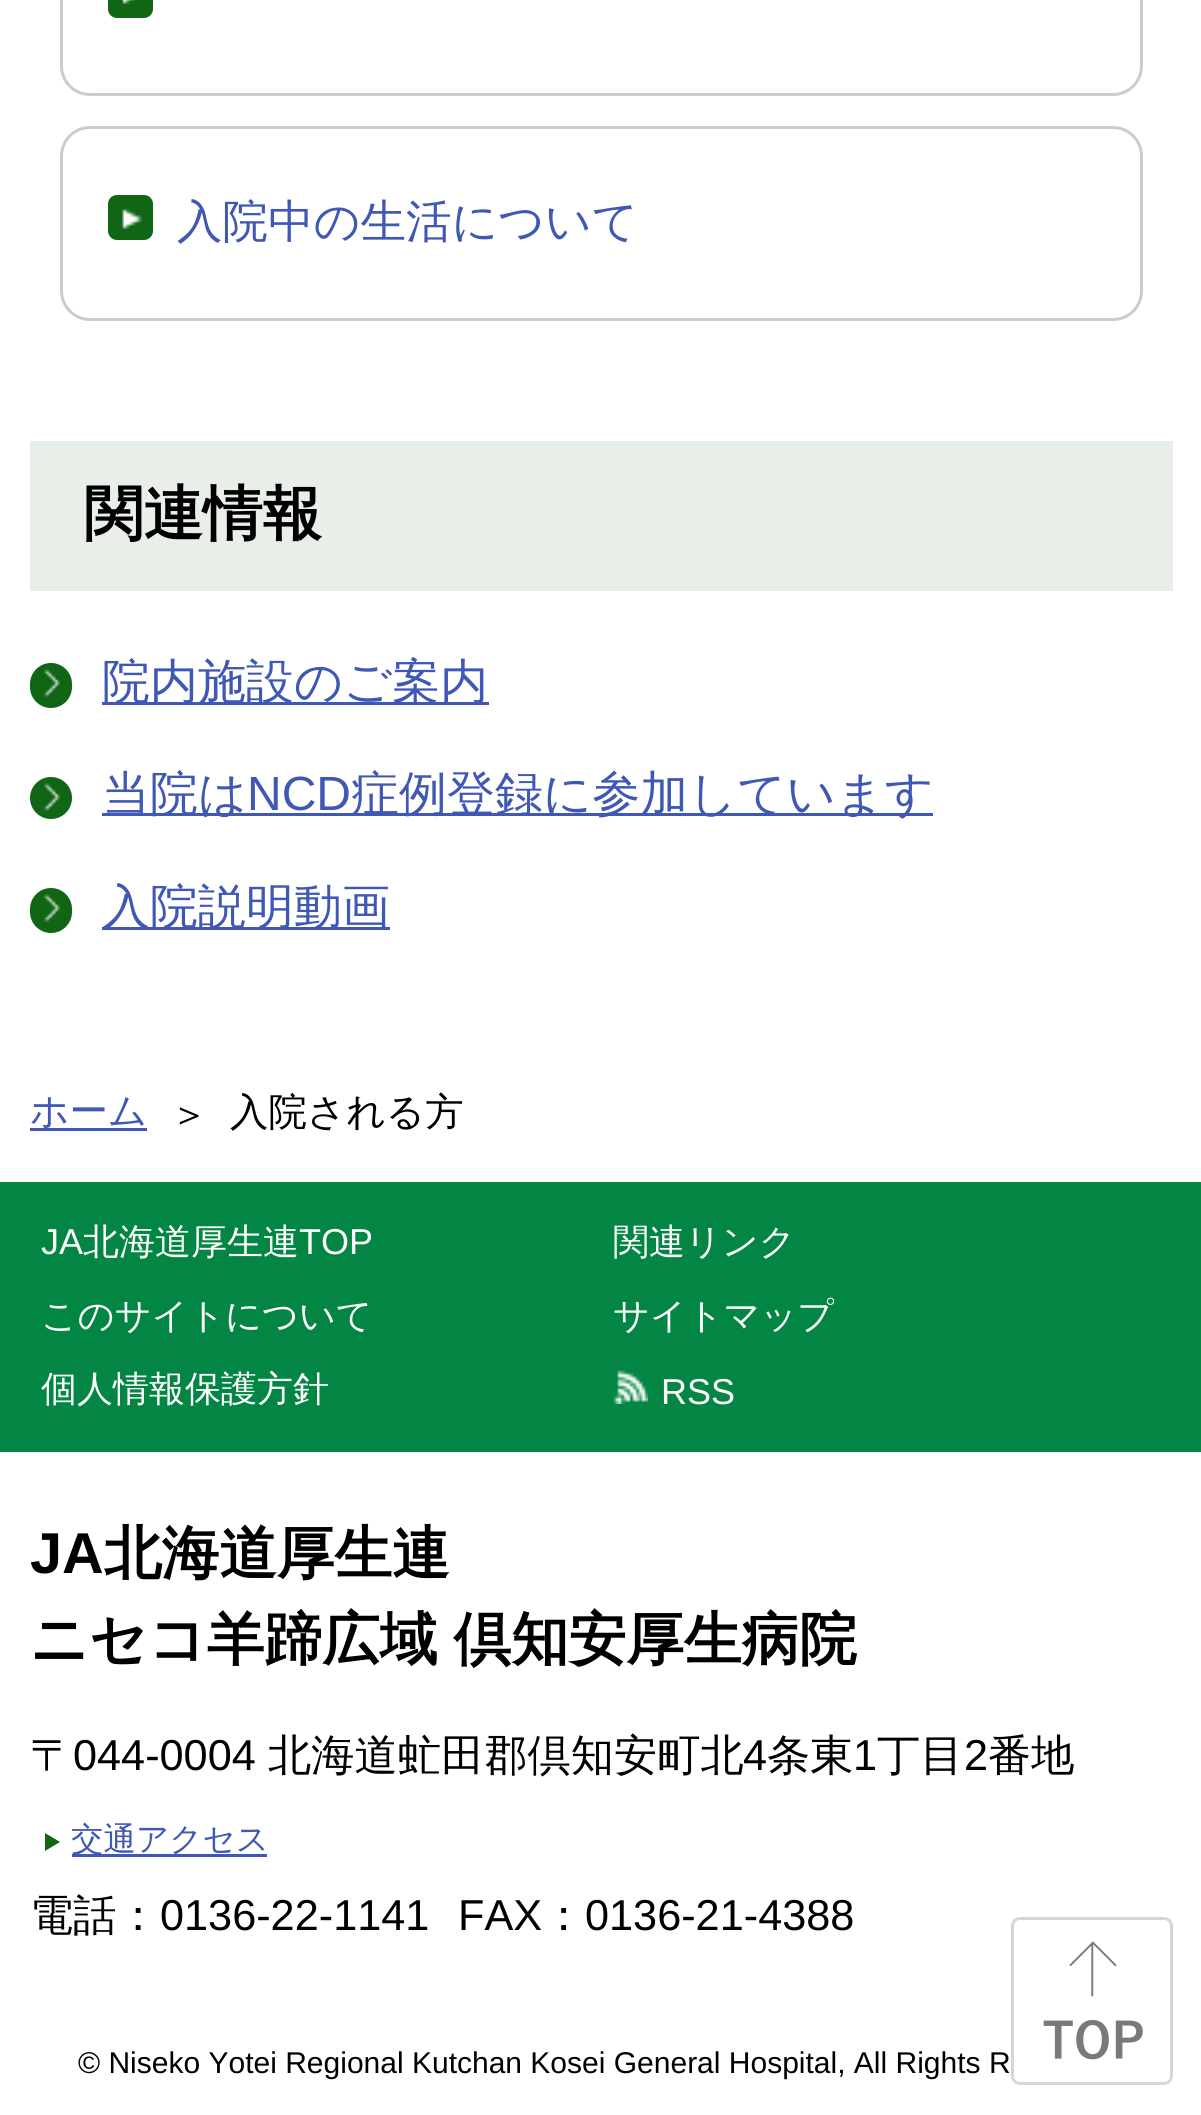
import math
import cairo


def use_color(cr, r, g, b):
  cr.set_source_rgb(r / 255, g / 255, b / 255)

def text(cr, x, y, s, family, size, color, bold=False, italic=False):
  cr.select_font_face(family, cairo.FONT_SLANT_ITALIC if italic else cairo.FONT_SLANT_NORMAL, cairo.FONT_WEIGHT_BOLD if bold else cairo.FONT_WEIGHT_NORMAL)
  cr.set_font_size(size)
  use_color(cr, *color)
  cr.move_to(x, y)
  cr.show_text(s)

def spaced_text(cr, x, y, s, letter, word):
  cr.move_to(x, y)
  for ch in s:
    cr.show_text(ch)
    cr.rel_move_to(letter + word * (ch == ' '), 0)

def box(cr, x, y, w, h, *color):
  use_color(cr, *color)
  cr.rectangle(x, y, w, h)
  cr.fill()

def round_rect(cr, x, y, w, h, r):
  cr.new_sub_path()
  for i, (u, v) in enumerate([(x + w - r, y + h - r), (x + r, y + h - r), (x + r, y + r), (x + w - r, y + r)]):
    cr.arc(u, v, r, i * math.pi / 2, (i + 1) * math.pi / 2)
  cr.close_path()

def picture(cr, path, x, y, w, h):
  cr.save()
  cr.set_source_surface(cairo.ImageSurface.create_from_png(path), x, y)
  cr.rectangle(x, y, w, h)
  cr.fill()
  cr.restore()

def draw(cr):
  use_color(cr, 255, 255, 255)
  cr.paint()
  round_rect(cr, 61.5, -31.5, 1080, 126, 28.5)
  use_color(cr, 204, 204, 204)
  cr.set_line_width(3)
  cr.stroke()
  use_color(cr, 16, 102, 20)
  round_rect(cr, 108, -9, 45, 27, 9)
  cr.fill()
  picture(cr, "img_01.png", 122, 0, 14, 4)
  round_rect(cr, 61.5, 127.5, 1080, 192, 28.5)
  use_color(cr, 204, 204, 204)
  cr.stroke()
  use_color(cr, 16, 102, 20)
  round_rect(cr, 108, 195, 45, 45, 9)
  cr.fill()
  picture(cr, "img_02.png", 122, 209, 20, 20)
  box(cr, 30, 441, 1143, 150, 231, 239, 232)
  use_color(cr, 16, 102, 20)
  round_rect(cr, 30, 663, 42, 45, 21)
  cr.fill()
  picture(cr, "img_03.png", 44, 669, 16, 29)
  box(cr, 102, 702, 387, 3, 63, 87, 181)
  use_color(cr, 16, 102, 20)
  cr.arc(51, 798, 21, 0, 2 * math.pi)
  cr.fill()
  picture(cr, "img_03.png", 44, 783, 16, 29)
  box(cr, 102, 813, 831, 3, 63, 87, 181)
  use_color(cr, 16, 102, 20)
  round_rect(cr, 30, 888, 42, 45, 21)
  cr.fill()
  picture(cr, "img_03.png", 44, 894, 16, 29)
  box(cr, 102, 927, 288, 3, 63, 87, 181)
  box(cr, 30, 1128, 117, 3, 63, 87, 181)
  box(cr, 0, 1182, 1201, 270, 3, 134, 67)
  picture(cr, "img_04.png", 614, 1370, 34, 34)
  use_color(cr, 16, 102, 20)
  cr.new_path()
  cr.move_to(45, 1851)
  cr.line_to(45, 1833)
  cr.line_to(60, 1842)
  cr.close_path()
  cr.fill()
  box(cr, 72, 1854, 195, 3, 63, 87, 181)
  picture(cr, "img_05.png", 1043, 1941, 100, 119)
  round_rect(cr, 1012.5, 1918.5, 159, 165, 7.5)
  cr.set_source_rgba(0.8, 0.8, 0.8, 0.8)
  cr.stroke()
  text(cr, 177, 237, "入院中の生活について", "WenQuanYi Zen Hei Medium", 45.6, (63, 87, 181))
  text(cr, 84, 534, "関連情報", "WenQuanYi Zen Hei", 59.5, (0, 0, 0), bold=True)
  text(cr, 102, 698, "院内施設のご案内", "WenQuanYi Zen Hei Medium", 48, (63, 87, 181))
  text(cr, 102, 810, "当院は", "WenQuanYi Zen Hei Medium", 48, (63, 87, 181))
  text(cr, 247, 810, "NCD", "Liberation Sans", 48, (63, 87, 181))
  text(cr, 351, 810, "症例登録に参加しています", "WenQuanYi Zen Hei Medium", 48, (63, 87, 181))
  text(cr, 102, 923, "入院説明動画", "WenQuanYi Zen Hei Medium", 48, (63, 87, 181))
  text(cr, 30, 1124, "ホーム", "WenQuanYi Zen Hei Medium", 38.5, (63, 87, 181))
  text(cr, 170, 1127, "＞", "WenQuanYi Zen Hei Medium", 38.5, (0, 0, 0))
  text(cr, 230, 1125, "入院される方", "WenQuanYi Zen Hei Medium", 38.5, (0, 0, 0))
  text(cr, 41, 1254, "JA", "Liberation Sans", 36, (255, 255, 255))
  text(cr, 83, 1254, "北海道厚生連", "WenQuanYi Zen Hei Medium", 36, (255, 255, 255))
  text(cr, 299, 1254, "TOP", "Liberation Sans", 36, (255, 255, 255))
  text(cr, 613, 1254, "関連リンク", "WenQuanYi Zen Hei Medium", 36, (255, 255, 255))
  text(cr, 41, 1328, "このサイトについて", "WenQuanYi Zen Hei Medium", 36, (255, 255, 255))
  text(cr, 613, 1328, "サイトマップ", "WenQuanYi Zen Hei Medium", 36, (255, 255, 255))
  text(cr, 41, 1401, "個人情報保護方針", "WenQuanYi Zen Hei Medium", 36, (255, 255, 255))
  text(cr, 661, 1404, "RSS", "Liberation Sans", 36, (255, 255, 255))
  text(cr, 30, 1573, "JA", "Liberation Sans", 57.6, (0, 0, 0), bold=True)
  text(cr, 104, 1573, "北海道厚生連", "WenQuanYi Zen Hei", 57.6, (0, 0, 0), bold=True)
  spaced_text(cr, 30, 1659, "ニセコ羊蹄広域 倶知安厚生病院", 0, -1)
  text(cr, 30, 1770, "〒", "WenQuanYi Zen Hei Medium", 43.25, (0, 0, 0))
  text(cr, 73, 1770, "044-0004", "Liberation Sans", 43.25, (0, 0, 0))
  text(cr, 268, 1770, "北海道虻田郡倶知安町北", "WenQuanYi Zen Hei Medium", 43.25, (0, 0, 0))
  text(cr, 743, 1770, "4", "Liberation Sans", 43.25, (0, 0, 0))
  text(cr, 767, 1770, "条東", "WenQuanYi Zen Hei Medium", 43.25, (0, 0, 0))
  text(cr, 853, 1770, "1", "Liberation Sans", 43.25, (0, 0, 0))
  text(cr, 877, 1770, "丁目", "WenQuanYi Zen Hei Medium", 43.25, (0, 0, 0))
  text(cr, 964, 1770, "2", "Liberation Sans", 43.25, (0, 0, 0))
  text(cr, 988, 1770, "番地", "WenQuanYi Zen Hei Medium", 43.25, (0, 0, 0))
  text(cr, 71, 1850, "交通アクセス", "WenQuanYi Zen Hei Medium", 32.5, (63, 87, 181))
  text(cr, 30, 1930, "電話：", "WenQuanYi Zen Hei Medium", 43.25, (0, 0, 0))
  text(cr, 160, 1930, "0136-22-1141", "Liberation Sans", 43.25, (0, 0, 0))
  text(cr, 458, 1930, "FAX", "Liberation Sans", 43.25, (0, 0, 0))
  text(cr, 542, 1930, "：", "WenQuanYi Zen Hei Medium", 43.25, (0, 0, 0))
  text(cr, 585, 1930, "0136-21-4388", "Liberation Sans", 43.25, (0, 0, 0))
  text(cr, 78, 2073, "© Niseko Yotei Regional Kutchan Kosei General Hospital, All Rights R", "Liberation Sans", 30, (0, 0, 0))


surface = cairo.ImageSurface(cairo.FORMAT_RGB24, 1201, 2115)
cr = cairo.Context(surface)
options = cairo.FontOptions()
options.set_hint_metrics(cairo.HINT_METRICS_OFF)
options.set_hint_style(cairo.HINT_STYLE_NONE)
cr.set_font_options(options)
cr.set_miter_limit(4)
draw(cr)
surface.write_to_png("out.png")
